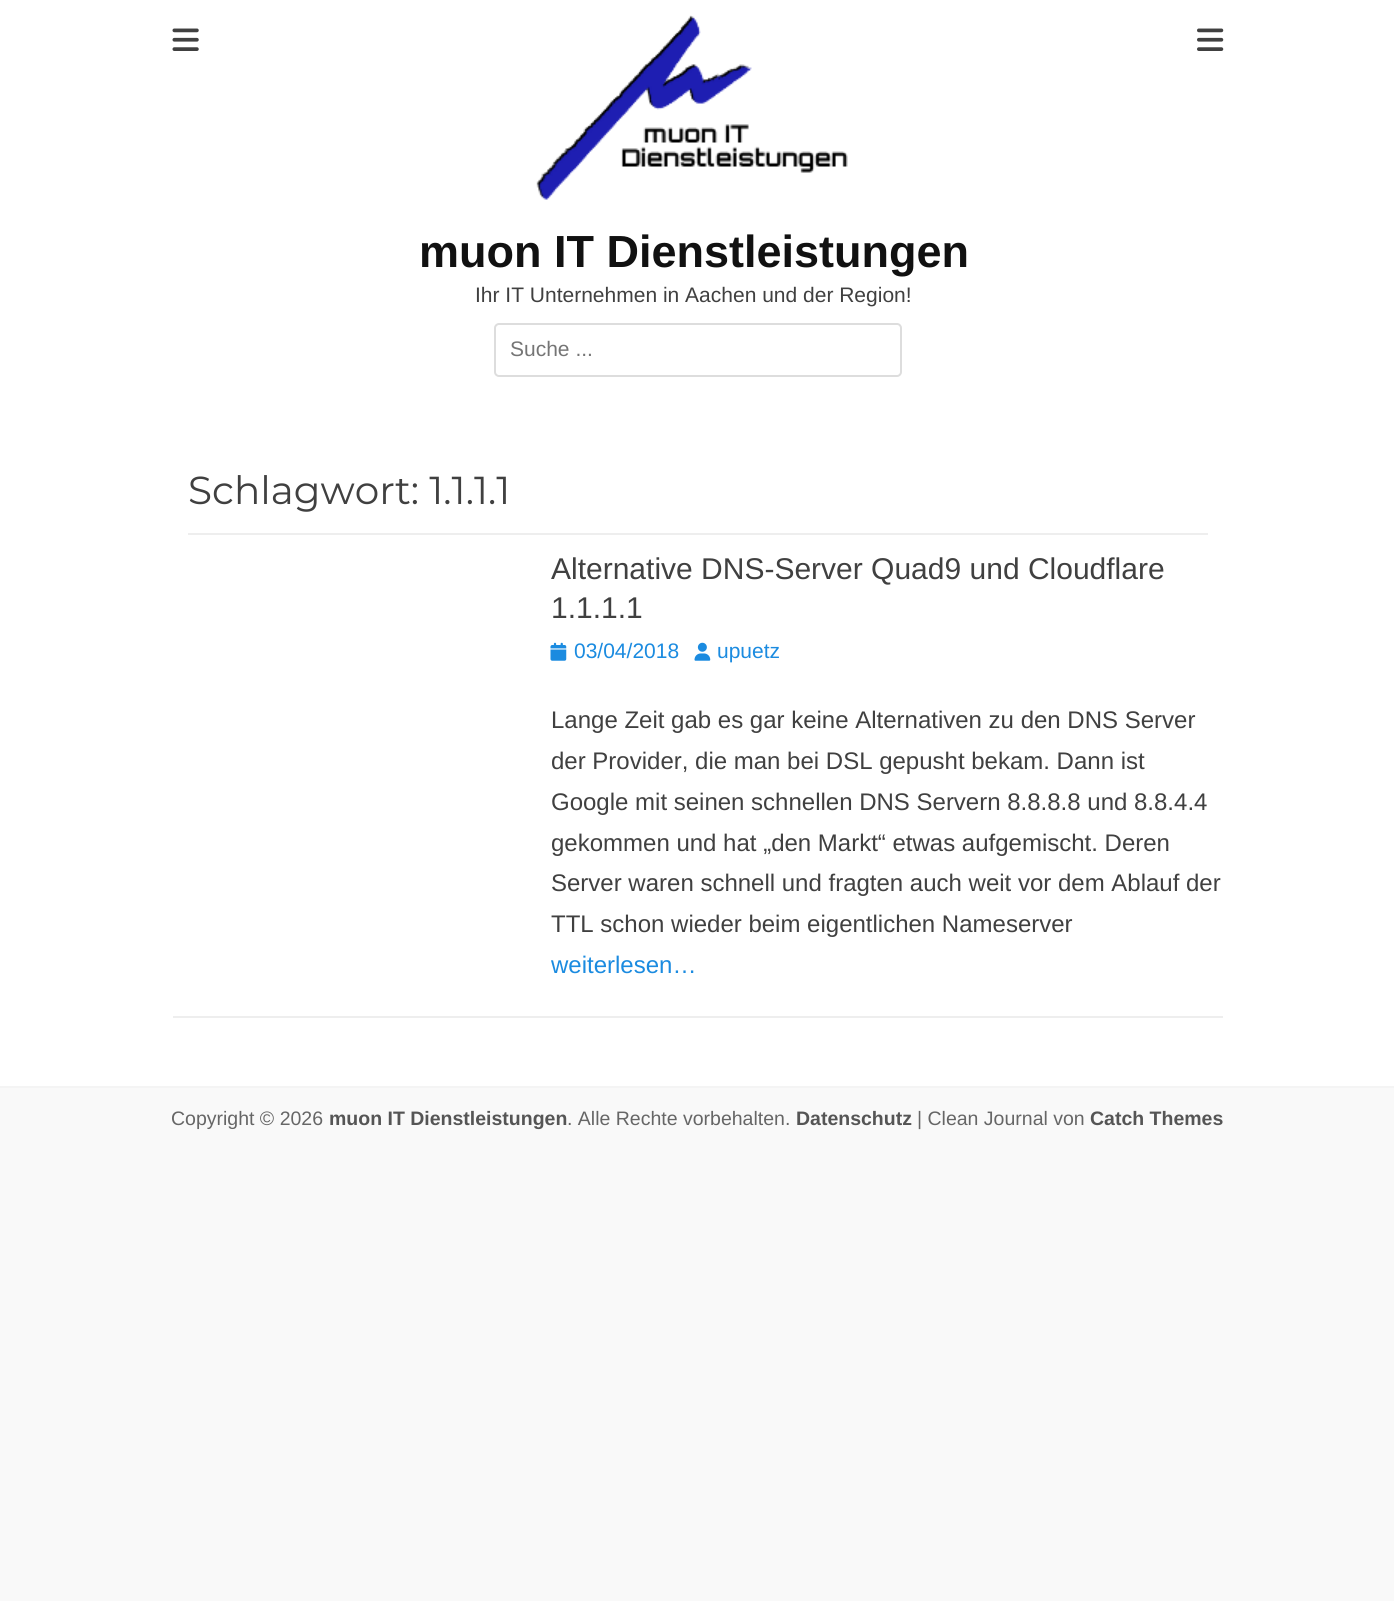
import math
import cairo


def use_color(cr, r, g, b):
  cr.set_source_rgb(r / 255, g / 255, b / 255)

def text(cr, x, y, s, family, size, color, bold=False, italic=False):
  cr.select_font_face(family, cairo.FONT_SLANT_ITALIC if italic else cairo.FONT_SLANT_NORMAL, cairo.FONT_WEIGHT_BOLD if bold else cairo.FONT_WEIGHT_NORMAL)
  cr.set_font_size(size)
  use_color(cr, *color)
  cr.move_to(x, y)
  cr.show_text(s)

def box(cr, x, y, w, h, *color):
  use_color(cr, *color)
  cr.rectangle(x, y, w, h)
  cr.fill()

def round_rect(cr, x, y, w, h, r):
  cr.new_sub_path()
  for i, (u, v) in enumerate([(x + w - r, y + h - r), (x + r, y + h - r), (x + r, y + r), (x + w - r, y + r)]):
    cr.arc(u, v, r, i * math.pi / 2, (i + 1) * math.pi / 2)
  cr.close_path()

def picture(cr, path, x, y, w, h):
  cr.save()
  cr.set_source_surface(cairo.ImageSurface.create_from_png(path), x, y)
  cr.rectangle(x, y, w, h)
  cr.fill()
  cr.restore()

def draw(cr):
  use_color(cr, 249, 249, 249)
  cr.paint()
  box(cr, 0, 0, 1394, 1086, 255, 255, 255)
  picture(cr, "img_01.png", 172, 28, 27, 23)
  picture(cr, "img_02.png", 1197, 28, 27, 23)
  picture(cr, "img_03.png", 536, 15, 312, 185)
  round_rect(cr, 495, 324, 406, 52, 4)
  use_color(cr, 221, 221, 221)
  cr.stroke()
  box(cr, 188, 533, 1020, 2, 238, 238, 238)
  box(cr, 173, 1016, 1050, 2, 238, 238, 238)
  picture(cr, "img_04.png", 550, 642, 17, 19)
  picture(cr, "img_05.png", 694, 642, 17, 19)
  box(cr, 0, 1086, 1394, 2, 244, 244, 244)
  text(cr, 419, 267, "muon IT Dienstleistungen", "Liberation Sans", 45, (17, 17, 17), bold=True)
  text(cr, 475, 302, "Ihr IT Unternehmen in Aachen und der Region!", "Liberation Sans", 21, (64, 64, 64))
  text(cr, 510, 356, "Suche ...", "Liberation Sans", 21, (117, 117, 117))
  text(cr, 188, 504, "Schlagwort: 1.1.1.1", "Montserrat", 39, (64, 64, 64))
  text(cr, 551, 579, "Alternative DNS-Server Quad9 und Cloudflare", "Liberation Sans", 30, (64, 64, 64))
  text(cr, 551, 618, "1.1.1.1", "Liberation Sans", 30, (64, 64, 64))
  text(cr, 574, 658, "03/04/2018", "Liberation Sans", 21, (27, 139, 224))
  text(cr, 717, 658, "upuetz", "Liberation Sans", 21, (27, 139, 224))
  text(cr, 551, 728, "Lange Zeit gab es gar keine Alternativen zu den DNS Server", "Liberation Sans", 24, (64, 64, 64))
  text(cr, 551, 769, "der Provider, die man bei DSL gepusht bekam. Dann ist", "Liberation Sans", 24, (64, 64, 64))
  text(cr, 551, 810, "Google mit seinen schnellen DNS Servern 8.8.8.8 und 8.8.4.4", "Liberation Sans", 24, (64, 64, 64))
  text(cr, 551, 851, "gekommen und hat „den Markt“ etwas aufgemischt. Deren", "Liberation Sans", 24, (64, 64, 64))
  text(cr, 551, 891, "Server waren schnell und fragten auch weit vor dem Ablauf der", "Liberation Sans", 24, (64, 64, 64))
  text(cr, 551, 932, "TTL schon wieder beim eigentlichen Nameserver", "Liberation Sans", 24, (64, 64, 64))
  text(cr, 551, 973, "weiterlesen…", "Liberation Sans", 24, (27, 139, 224))
  text(cr, 171, 1125, "Copyright © 2026", "Liberation Sans", 19.5, (102, 102, 102))
  text(cr, 329, 1125, "muon IT Dienstleistungen", "Liberation Sans", 19.5, (85, 85, 85), bold=True)
  text(cr, 567, 1125, ". Alle Rechte vorbehalten.", "Liberation Sans", 19.5, (102, 102, 102))
  text(cr, 796, 1125, "Datenschutz", "Liberation Sans", 19.5, (85, 85, 85), bold=True)
  text(cr, 917, 1125, "| Clean Journal von", "Liberation Sans", 19.5, (102, 102, 102))
  text(cr, 1090, 1125, "Catch Themes", "Liberation Sans", 19.5, (85, 85, 85), bold=True)


surface = cairo.ImageSurface(cairo.FORMAT_RGB24, 1394, 1601)
cr = cairo.Context(surface)
options = cairo.FontOptions()
options.set_hint_metrics(cairo.HINT_METRICS_OFF)
options.set_hint_style(cairo.HINT_STYLE_NONE)
cr.set_font_options(options)
cr.set_miter_limit(4)
draw(cr)
surface.write_to_png("out.png")
